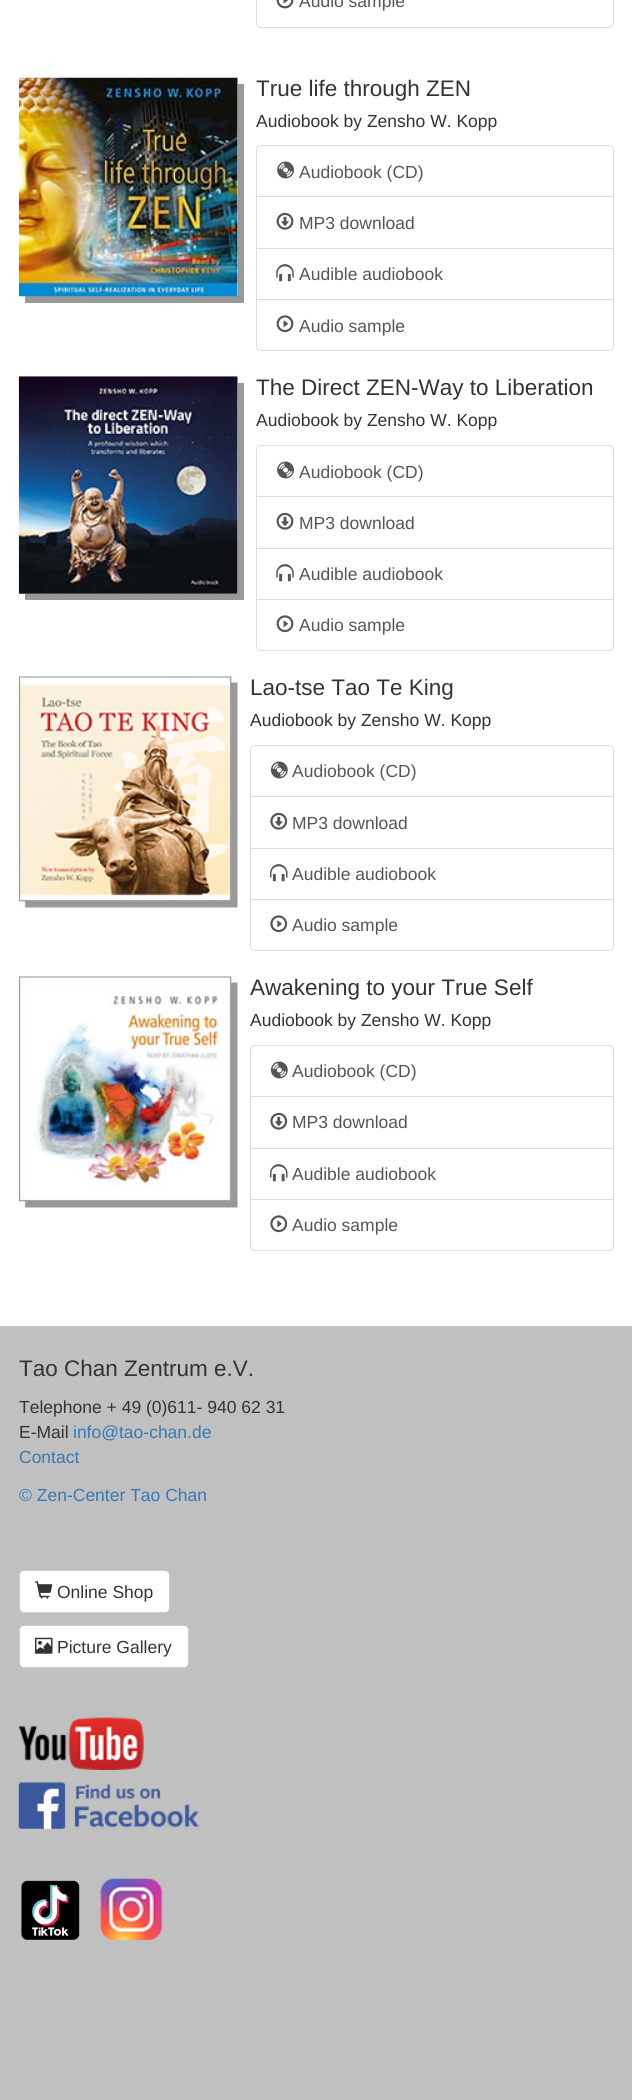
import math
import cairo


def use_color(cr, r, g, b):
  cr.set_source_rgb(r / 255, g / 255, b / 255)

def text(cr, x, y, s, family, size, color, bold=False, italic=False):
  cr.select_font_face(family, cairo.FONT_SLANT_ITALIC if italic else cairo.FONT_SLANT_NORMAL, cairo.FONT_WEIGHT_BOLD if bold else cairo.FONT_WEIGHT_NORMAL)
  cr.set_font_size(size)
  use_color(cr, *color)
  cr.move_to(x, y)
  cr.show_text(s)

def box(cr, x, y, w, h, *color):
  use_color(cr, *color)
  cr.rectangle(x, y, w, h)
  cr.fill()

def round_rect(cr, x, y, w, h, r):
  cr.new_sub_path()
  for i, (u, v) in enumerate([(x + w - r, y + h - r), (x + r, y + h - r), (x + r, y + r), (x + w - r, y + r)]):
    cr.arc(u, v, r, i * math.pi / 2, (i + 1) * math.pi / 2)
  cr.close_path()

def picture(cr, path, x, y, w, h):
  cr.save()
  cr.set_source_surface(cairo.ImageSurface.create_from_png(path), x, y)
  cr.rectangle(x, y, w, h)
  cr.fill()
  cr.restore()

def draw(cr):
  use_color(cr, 255, 255, 255)
  cr.paint()
  cr.new_path()
  cr.move_to(256.5, -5.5)
  cr.line_to(613.5, -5.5)
  cr.line_to(613.5, 23)
  cr.curve_to(613.5, 25.5, 611.5, 27.5, 609, 27.5)
  cr.line_to(261, 27.5)
  cr.curve_to(258.5, 27.5, 256.5, 25.5, 256.5, 23)
  cr.close_path()
  use_color(cr, 221, 221, 221)
  cr.set_line_width(1)
  cr.stroke()
  picture(cr, "img_01.png", 276, 0, 18, 9)
  use_color(cr, 153, 153, 153)
  cr.new_path()
  cr.move_to(25, 296)
  cr.line_to(25, 303)
  cr.line_to(244, 303)
  cr.line_to(244, 84)
  cr.line_to(238, 84)
  cr.line_to(238, 296)
  cr.close_path()
  cr.fill()
  picture(cr, "img_02.png", 18, 77, 220, 220)
  cr.new_path()
  cr.move_to(261, 145.5)
  cr.line_to(609, 145.5)
  cr.curve_to(611.5, 145.5, 613.5, 147.5, 613.5, 150)
  cr.line_to(613.5, 197.5)
  cr.line_to(256.5, 197.5)
  cr.line_to(256.5, 150)
  cr.curve_to(256.5, 147.5, 258.5, 145.5, 261, 145.5)
  cr.close_path()
  use_color(cr, 221, 221, 221)
  cr.stroke()
  picture(cr, "img_03.png", 277, 161, 17, 18)
  box(cr, 257, 197, 356, 1, 255, 255, 255)
  cr.rectangle(256.5, 196.5, 357, 52)
  use_color(cr, 221, 221, 221)
  cr.stroke()
  picture(cr, "img_04.png", 276, 212, 18, 18)
  cr.rectangle(256.5, 248.5, 357, 51)
  cr.stroke()
  picture(cr, "img_05.png", 276, 264, 18, 18)
  use_color(cr, 255, 255, 255)
  cr.new_path()
  cr.move_to(256.5, 299.5)
  cr.line_to(613.5, 299.5)
  cr.line_to(613.5, 346)
  cr.curve_to(613.5, 348.5, 611.5, 350.5, 609, 350.5)
  cr.line_to(261, 350.5)
  cr.curve_to(258.5, 350.5, 256.5, 348.5, 256.5, 346)
  cr.close_path()
  cr.fill_preserve()
  use_color(cr, 221, 221, 221)
  cr.stroke()
  picture(cr, "img_06.png", 276, 315, 18, 18)
  use_color(cr, 153, 153, 153)
  cr.new_path()
  cr.move_to(25, 594)
  cr.line_to(25, 600)
  cr.line_to(244, 600)
  cr.line_to(244, 383)
  cr.line_to(238, 383)
  cr.line_to(238, 594)
  cr.close_path()
  cr.fill()
  picture(cr, "img_07.png", 18, 376, 220, 218)
  cr.new_path()
  cr.move_to(261, 445.5)
  cr.line_to(609, 445.5)
  cr.curve_to(611.5, 445.5, 613.5, 447.5, 613.5, 450)
  cr.line_to(613.5, 497.5)
  cr.line_to(256.5, 497.5)
  cr.line_to(256.5, 450)
  cr.curve_to(256.5, 447.5, 258.5, 445.5, 261, 445.5)
  cr.close_path()
  use_color(cr, 221, 221, 221)
  cr.stroke()
  picture(cr, "img_03.png", 277, 461, 17, 18)
  box(cr, 257, 497, 356, 1, 255, 255, 255)
  cr.rectangle(256.5, 496.5, 357, 52)
  use_color(cr, 221, 221, 221)
  cr.stroke()
  picture(cr, "img_04.png", 276, 512, 18, 18)
  cr.rectangle(256.5, 548.5, 357, 51)
  cr.stroke()
  picture(cr, "img_05.png", 276, 564, 18, 18)
  use_color(cr, 255, 255, 255)
  cr.new_path()
  cr.move_to(256.5, 599.5)
  cr.line_to(613.5, 599.5)
  cr.line_to(613.5, 646)
  cr.curve_to(613.5, 648.5, 611.5, 650.5, 609, 650.5)
  cr.line_to(261, 650.5)
  cr.curve_to(258.5, 650.5, 256.5, 648.5, 256.5, 646)
  cr.close_path()
  cr.fill_preserve()
  use_color(cr, 221, 221, 221)
  cr.stroke()
  picture(cr, "img_06.png", 276, 615, 18, 18)
  picture(cr, "img_08.png", 18, 676, 220, 232)
  cr.new_path()
  cr.move_to(255, 745.5)
  cr.line_to(609, 745.5)
  cr.curve_to(611.5, 745.5, 613.5, 747.5, 613.5, 750)
  cr.line_to(613.5, 797.5)
  cr.line_to(250.5, 797.5)
  cr.line_to(250.5, 750)
  cr.curve_to(250.5, 747.5, 252.5, 745.5, 255, 745.5)
  cr.close_path()
  cr.stroke()
  picture(cr, "img_09.png", 270, 761, 18, 18)
  box(cr, 251, 797, 362, 1, 255, 255, 255)
  cr.rectangle(250.5, 796.5, 363, 52)
  use_color(cr, 221, 221, 221)
  cr.stroke()
  picture(cr, "img_10.png", 270, 812, 18, 18)
  cr.rectangle(250.5, 848.5, 363, 51)
  cr.stroke()
  picture(cr, "img_11.png", 270, 864, 18, 18)
  use_color(cr, 255, 255, 255)
  cr.new_path()
  cr.move_to(250.5, 899.5)
  cr.line_to(613.5, 899.5)
  cr.line_to(613.5, 946)
  cr.curve_to(613.5, 948.5, 611.5, 950.5, 609, 950.5)
  cr.line_to(255, 950.5)
  cr.curve_to(252.5, 950.5, 250.5, 948.5, 250.5, 946)
  cr.close_path()
  cr.fill_preserve()
  use_color(cr, 221, 221, 221)
  cr.stroke()
  picture(cr, "img_12.png", 270, 915, 18, 18)
  picture(cr, "img_13.png", 18, 976, 220, 232)
  cr.new_path()
  cr.move_to(255, 1045.5)
  cr.line_to(609, 1045.5)
  cr.curve_to(611.5, 1045.5, 613.5, 1047.5, 613.5, 1050)
  cr.line_to(613.5, 1097.5)
  cr.line_to(250.5, 1097.5)
  cr.line_to(250.5, 1050)
  cr.curve_to(250.5, 1047.5, 252.5, 1045.5, 255, 1045.5)
  cr.close_path()
  cr.stroke()
  picture(cr, "img_09.png", 270, 1061, 18, 18)
  box(cr, 251, 1097, 362, 1, 255, 255, 255)
  cr.rectangle(250.5, 1096.5, 363, 52)
  use_color(cr, 221, 221, 221)
  cr.stroke()
  picture(cr, "img_10.png", 270, 1112, 18, 18)
  cr.rectangle(250.5, 1148.5, 363, 51)
  cr.stroke()
  picture(cr, "img_11.png", 270, 1164, 18, 18)
  use_color(cr, 255, 255, 255)
  cr.new_path()
  cr.move_to(250.5, 1199.5)
  cr.line_to(613.5, 1199.5)
  cr.line_to(613.5, 1246)
  cr.curve_to(613.5, 1248.5, 611.5, 1250.5, 609, 1250.5)
  cr.line_to(255, 1250.5)
  cr.curve_to(252.5, 1250.5, 250.5, 1248.5, 250.5, 1246)
  cr.close_path()
  cr.fill_preserve()
  use_color(cr, 221, 221, 221)
  cr.stroke()
  picture(cr, "img_12.png", 270, 1215, 18, 18)
  box(cr, 0, 1326, 632, 774, 192, 192, 192)
  use_color(cr, 255, 255, 255)
  round_rect(cr, 19.5, 1570.5, 150, 42, 4.5)
  cr.fill_preserve()
  use_color(cr, 204, 204, 204)
  cr.stroke()
  picture(cr, "img_14.png", 35, 1581, 18, 18)
  use_color(cr, 255, 255, 255)
  round_rect(cr, 19.5, 1625.5, 169, 42, 4.5)
  cr.fill_preserve()
  use_color(cr, 204, 204, 204)
  cr.stroke()
  picture(cr, "img_15.png", 35, 1637, 18, 17)
  picture(cr, "img_16.png", 18, 1717, 126, 53)
  picture(cr, "img_17.png", 18, 1782, 181, 47)
  picture(cr, "img_18.png", 21, 1880, 59, 60)
  picture(cr, "img_19.png", 100, 1878, 63, 62)
  text(cr, 299, 7, "Audio sample", "Liberation Sans", 17.5, (85, 85, 85))
  text(cr, 256, 96, "True life through ZEN", "Liberation Sans", 22.5, (51, 51, 51))
  text(cr, 256, 127, "Audiobook by Zensho W. Kopp", "Liberation Sans", 17.5, (51, 51, 51))
  text(cr, 299, 178, "Audiobook (CD)", "Liberation Sans", 17.5, (85, 85, 85))
  text(cr, 299, 229, "MP3 download", "Liberation Sans", 17.5, (85, 85, 85))
  text(cr, 299, 280, "Audible audiobook", "Liberation Sans", 17.5, (85, 85, 85))
  text(cr, 299, 332, "Audio sample", "Liberation Sans", 17.5, (85, 85, 85))
  text(cr, 256, 395, "The Direct ZEN-Way to Liberation", "Liberation Sans", 22.5, (51, 51, 51))
  text(cr, 256, 426, "Audiobook by Zensho W. Kopp", "Liberation Sans", 17.5, (51, 51, 51))
  text(cr, 299, 478, "Audiobook (CD)", "Liberation Sans", 17.5, (85, 85, 85))
  text(cr, 299, 529, "MP3 download", "Liberation Sans", 17.5, (85, 85, 85))
  text(cr, 299, 580, "Audible audiobook", "Liberation Sans", 17.5, (85, 85, 85))
  text(cr, 299, 631, "Audio sample", "Liberation Sans", 17.5, (85, 85, 85))
  text(cr, 250, 695, "Lao-tse Tao Te King", "Liberation Sans", 22.5, (51, 51, 51))
  text(cr, 250, 726, "Audiobook by Zensho W. Kopp", "Liberation Sans", 17.5, (51, 51, 51))
  text(cr, 292, 777, "Audiobook (CD)", "Liberation Sans", 17.5, (85, 85, 85))
  text(cr, 292, 829, "MP3 download", "Liberation Sans", 17.5, (85, 85, 85))
  text(cr, 292, 880, "Audible audiobook", "Liberation Sans", 17.5, (85, 85, 85))
  text(cr, 292, 931, "Audio sample", "Liberation Sans", 17.5, (85, 85, 85))
  text(cr, 250, 995, "Awakening to your True Self", "Liberation Sans", 22.5, (51, 51, 51))
  text(cr, 250, 1026, "Audiobook by Zensho W. Kopp", "Liberation Sans", 17.5, (51, 51, 51))
  text(cr, 292, 1077, "Audiobook (CD)", "Liberation Sans", 17.5, (85, 85, 85))
  text(cr, 292, 1128, "MP3 download", "Liberation Sans", 17.5, (85, 85, 85))
  text(cr, 292, 1180, "Audible audiobook", "Liberation Sans", 17.5, (85, 85, 85))
  text(cr, 292, 1231, "Audio sample", "Liberation Sans", 17.5, (85, 85, 85))
  text(cr, 19, 1376, "Tao Chan Zentrum e.V.", "Liberation Sans", 22.5, (51, 51, 51))
  text(cr, 19, 1413, "Telephone + 49 (0)611- 940 62 31", "Liberation Sans", 17.5, (51, 51, 51))
  text(cr, 19, 1438, "E-Mail", "Liberation Sans", 17.5, (51, 51, 51))
  text(cr, 73, 1438, "info@tao-chan.de", "Liberation Sans", 17.5, (51, 122, 183))
  text(cr, 19, 1463, "Contact", "Liberation Sans", 17.5, (51, 122, 183))
  text(cr, 19, 1501, "© Zen-Center Tao Chan", "Liberation Sans", 17.5, (51, 122, 183))
  text(cr, 57, 1598, "Online Shop", "Liberation Sans", 17.5, (51, 51, 51))
  text(cr, 57, 1653, "Picture Gallery", "Liberation Sans", 17.5, (51, 51, 51))


surface = cairo.ImageSurface(cairo.FORMAT_RGB24, 632, 2100)
cr = cairo.Context(surface)
options = cairo.FontOptions()
options.set_hint_metrics(cairo.HINT_METRICS_OFF)
options.set_hint_style(cairo.HINT_STYLE_NONE)
cr.set_font_options(options)
cr.set_miter_limit(4)
draw(cr)
surface.write_to_png("out.png")
